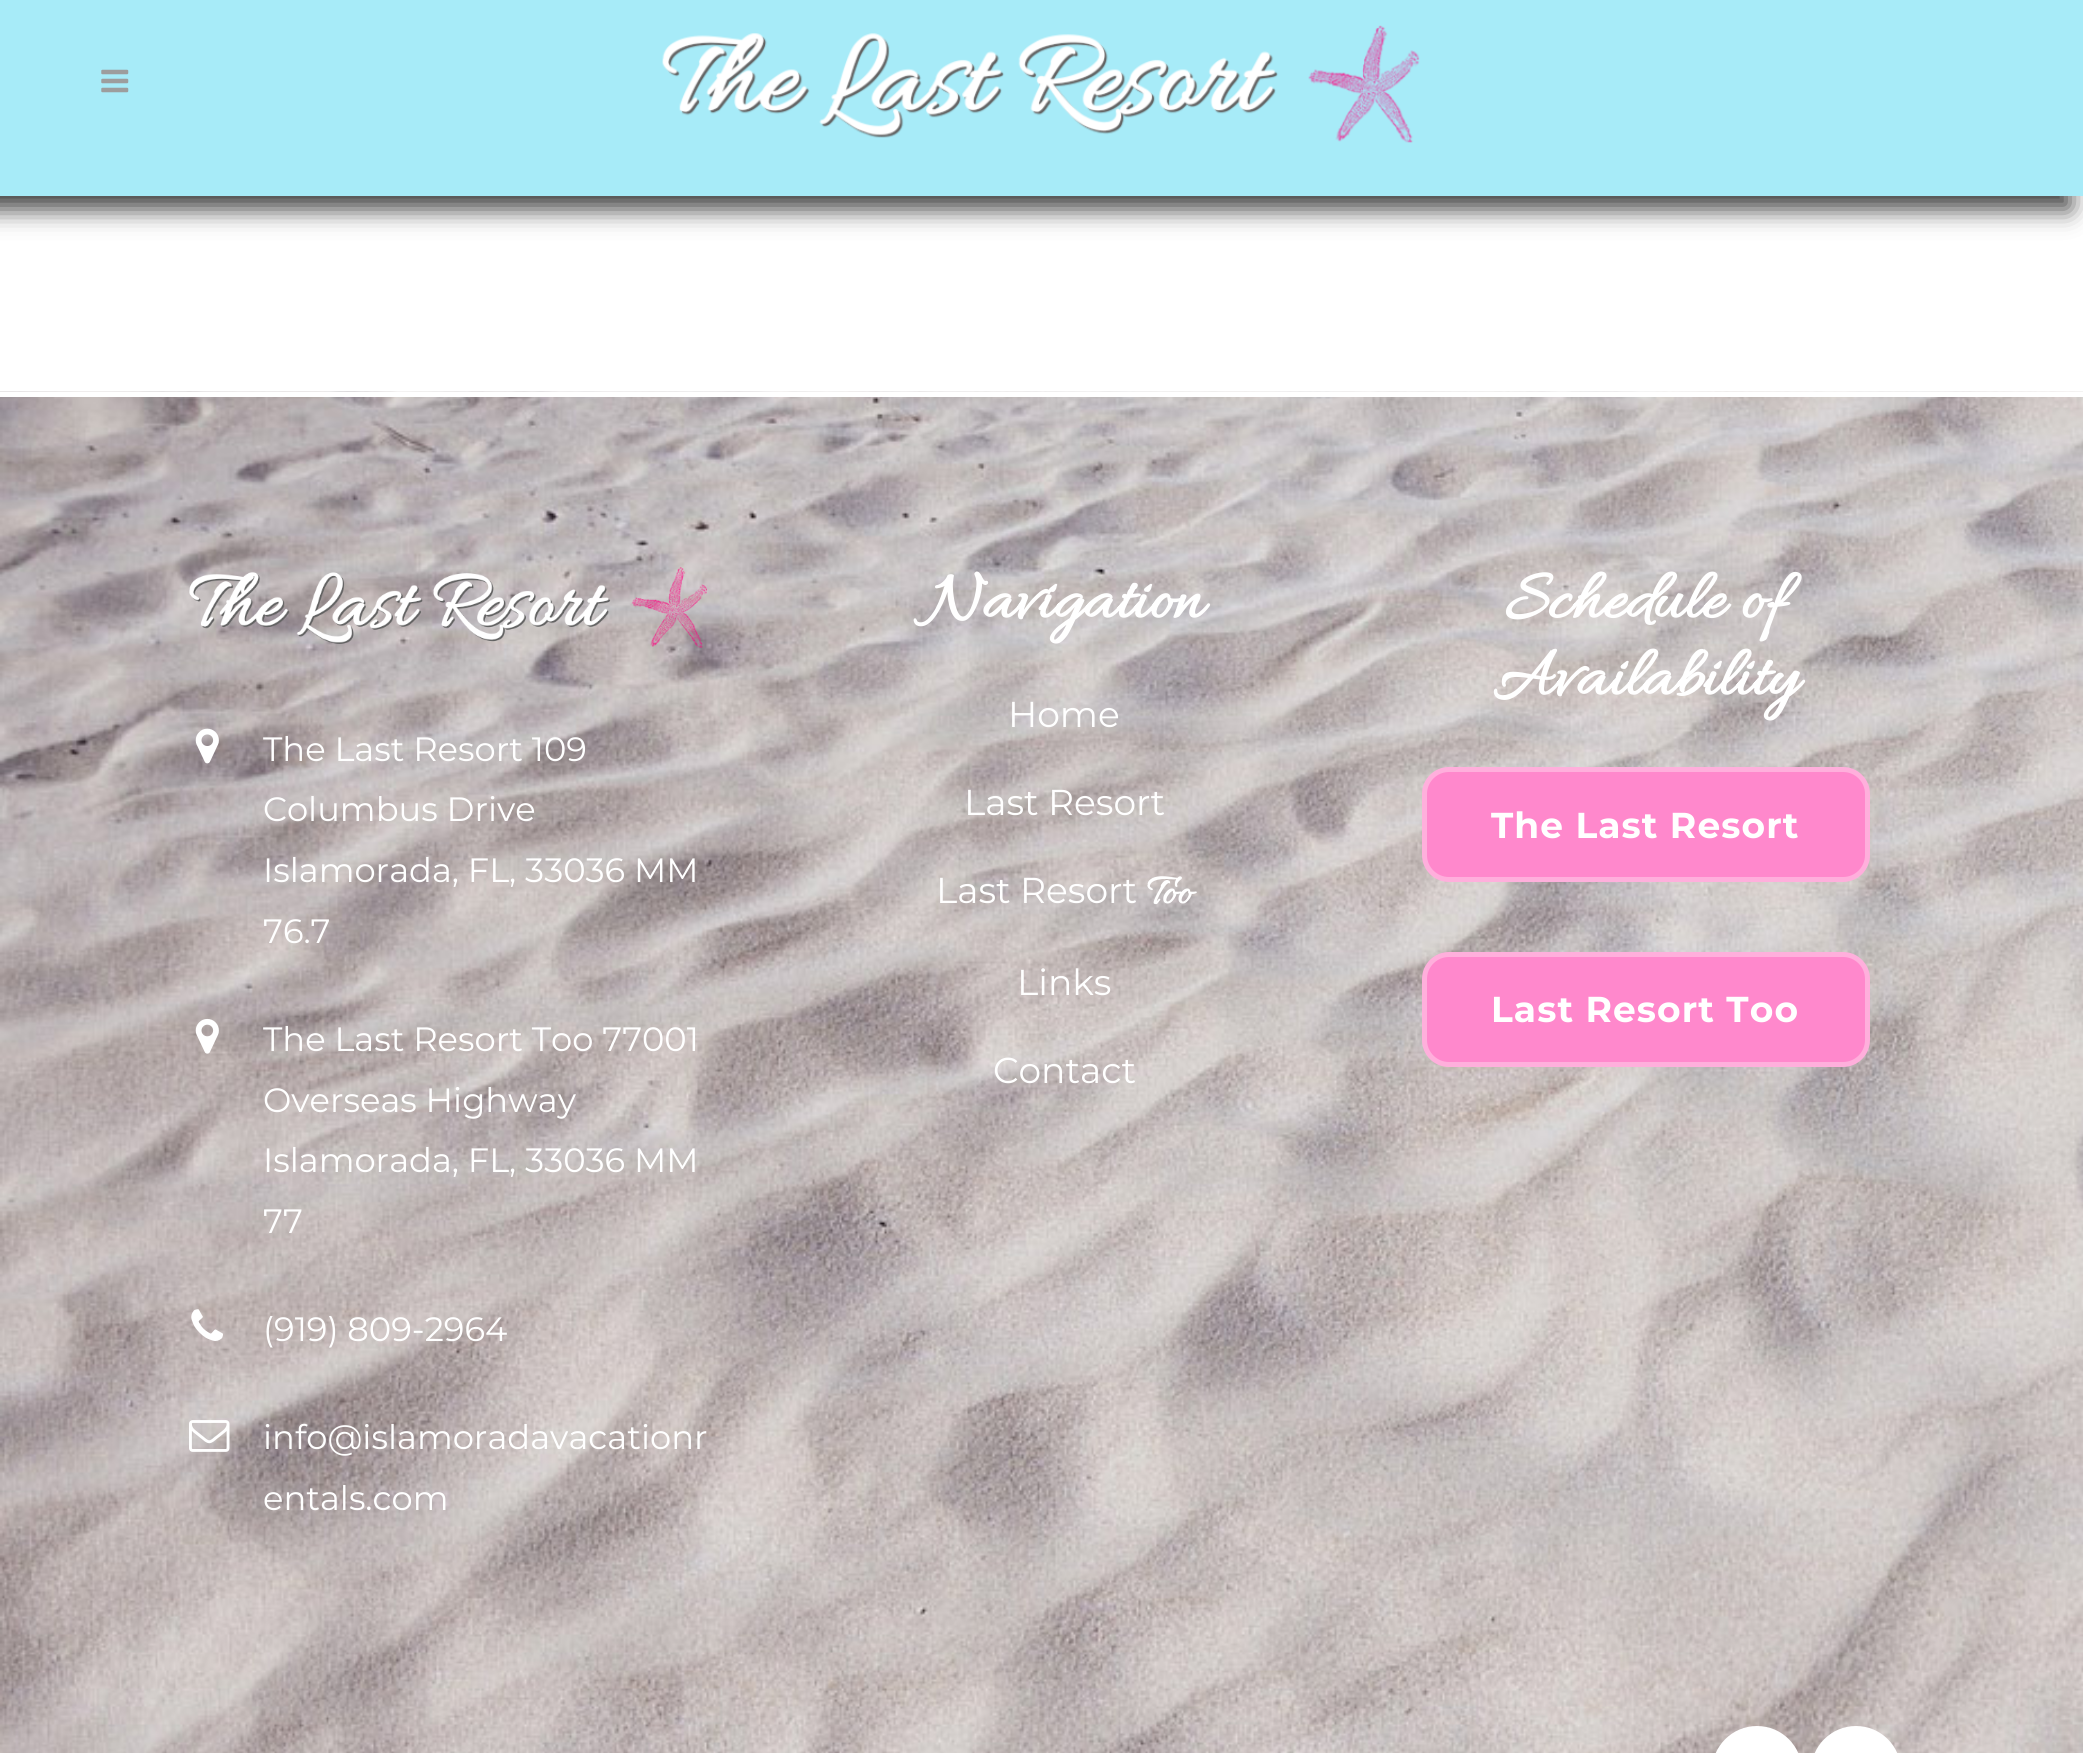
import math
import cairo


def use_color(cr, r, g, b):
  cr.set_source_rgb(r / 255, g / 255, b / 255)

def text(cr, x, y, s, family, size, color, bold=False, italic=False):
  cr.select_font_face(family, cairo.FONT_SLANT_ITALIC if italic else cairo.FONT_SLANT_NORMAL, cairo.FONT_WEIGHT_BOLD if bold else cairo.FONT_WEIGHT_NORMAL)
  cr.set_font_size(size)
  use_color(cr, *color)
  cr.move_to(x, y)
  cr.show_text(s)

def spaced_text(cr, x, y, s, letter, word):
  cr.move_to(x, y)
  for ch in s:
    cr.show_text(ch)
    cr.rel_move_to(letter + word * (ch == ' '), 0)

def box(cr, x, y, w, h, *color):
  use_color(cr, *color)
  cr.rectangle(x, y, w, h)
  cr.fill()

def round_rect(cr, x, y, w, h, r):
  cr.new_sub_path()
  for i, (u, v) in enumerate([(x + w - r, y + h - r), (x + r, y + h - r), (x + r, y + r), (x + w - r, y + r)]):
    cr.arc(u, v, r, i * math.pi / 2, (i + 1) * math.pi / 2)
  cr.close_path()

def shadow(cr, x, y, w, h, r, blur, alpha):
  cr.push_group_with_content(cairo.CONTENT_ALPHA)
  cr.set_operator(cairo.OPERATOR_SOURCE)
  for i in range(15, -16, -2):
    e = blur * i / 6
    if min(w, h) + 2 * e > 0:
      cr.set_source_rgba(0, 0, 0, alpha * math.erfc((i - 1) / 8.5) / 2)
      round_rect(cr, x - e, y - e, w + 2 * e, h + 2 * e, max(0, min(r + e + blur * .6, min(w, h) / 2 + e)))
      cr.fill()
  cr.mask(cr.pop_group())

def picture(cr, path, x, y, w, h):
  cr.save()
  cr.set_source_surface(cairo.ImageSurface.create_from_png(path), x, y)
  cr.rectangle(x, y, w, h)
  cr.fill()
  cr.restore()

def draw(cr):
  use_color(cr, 255, 255, 255)
  cr.paint()
  use_color(cr, 61, 61, 61)
  shadow(cr, -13, -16, 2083, 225, 0, 12.5, 1)
  box(cr, 0, 0, 2083, 196, 167, 235, 248)
  picture(cr, "img_01.png", 101, 69, 28, 24)
  picture(cr, "img_02.png", 662, 25, 758, 118)
  picture(cr, "img_03.png", 0, 391, 2083, 1362)
  box(cr, 0, 392, 2083, 5, 255, 255, 255)
  picture(cr, "img_04.png", 189, 567, 518, 81)
  picture(cr, "img_05.png", 195, 728, 24, 36)
  picture(cr, "img_06.png", 195, 1018, 24, 36)
  picture(cr, "img_07.png", 191, 1309, 32, 32)
  picture(cr, "img_08.png", 189, 1420, 41, 32)
  use_color(cr, 255, 136, 204)
  round_rect(cr, 1424.5, 769.5, 443, 110, 24.5)
  cr.fill_preserve()
  use_color(cr, 255, 175, 220)
  cr.set_line_width(5)
  cr.stroke()
  use_color(cr, 255, 136, 204)
  round_rect(cr, 1424.5, 954.5, 443, 110, 24.5)
  cr.fill_preserve()
  use_color(cr, 255, 175, 220)
  cr.stroke()
  use_color(cr, 255, 255, 255)
  round_rect(cr, 1712, 1726, 90, 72, 45)
  cr.fill()
  round_rect(cr, 1811, 1726, 90, 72, 45)
  cr.fill()
  text(cr, 263, 761, "The Last Resort 109", "Montserrat", 33.75, (255, 255, 255))
  text(cr, 263, 821, "Columbus Drive", "Montserrat", 33.75, (255, 255, 255))
  text(cr, 263, 882, "Islamorada, FL, 33036 MM", "Montserrat", 33.75, (255, 255, 255))
  text(cr, 263, 943, "76.7", "Montserrat", 33.75, (255, 255, 255))
  text(cr, 263, 1051, "The Last Resort Too 77001", "Montserrat", 33.75, (255, 255, 255))
  text(cr, 263, 1112, "Overseas Highway", "Montserrat", 33.75, (255, 255, 255))
  text(cr, 263, 1172, "Islamorada, FL, 33036 MM", "Montserrat", 33.75, (255, 255, 255))
  text(cr, 263, 1233, "77", "Montserrat", 33.75, (255, 255, 255))
  text(cr, 263, 1341, "(919) 809-2964", "Montserrat", 33.75, (255, 255, 255))
  text(cr, 263, 1449, "info@islamoradavacationr", "Montserrat", 33.75, (255, 255, 255))
  text(cr, 263, 1510, "entals.com", "Montserrat", 33.75, (255, 255, 255))
  text(cr, 926, 617, "Navigation", "Allura", 72, (255, 255, 255), bold=True)
  text(cr, 1008, 727, "Home", "Montserrat", 36, (255, 255, 255))
  text(cr, 964, 815, "Last Resort", "Montserrat", 36, (255, 255, 255))
  text(cr, 936, 903, "Last Resort", "Montserrat", 36, (255, 255, 255))
  text(cr, 1147, 903, "Too", "Allura", 44, (255, 255, 255), bold=True)
  text(cr, 1017, 995, "Links", "Montserrat", 36, (255, 255, 255))
  text(cr, 993, 1083, "Contact", "Montserrat", 36, (255, 255, 255))
  text(cr, 1505, 617, "Schedule of", "Allura", 72, (255, 255, 255), bold=True)
  text(cr, 1493, 694, "Availability", "Allura", 72, (255, 255, 255), bold=True)
  cr.select_font_face("Montserrat", cairo.FONT_SLANT_NORMAL, cairo.FONT_WEIGHT_BOLD)
  cr.set_font_size(36)
  spaced_text(cr, 1491, 838, "The Last Resort", 1.1, 0)
  spaced_text(cr, 1491, 1022, "Last Resort Too", 1.1, 0)


surface = cairo.ImageSurface(cairo.FORMAT_RGB24, 2083, 1753)
cr = cairo.Context(surface)
options = cairo.FontOptions()
options.set_hint_metrics(cairo.HINT_METRICS_OFF)
options.set_hint_style(cairo.HINT_STYLE_NONE)
cr.set_font_options(options)
cr.set_miter_limit(4)
draw(cr)
surface.write_to_png("out.png")
